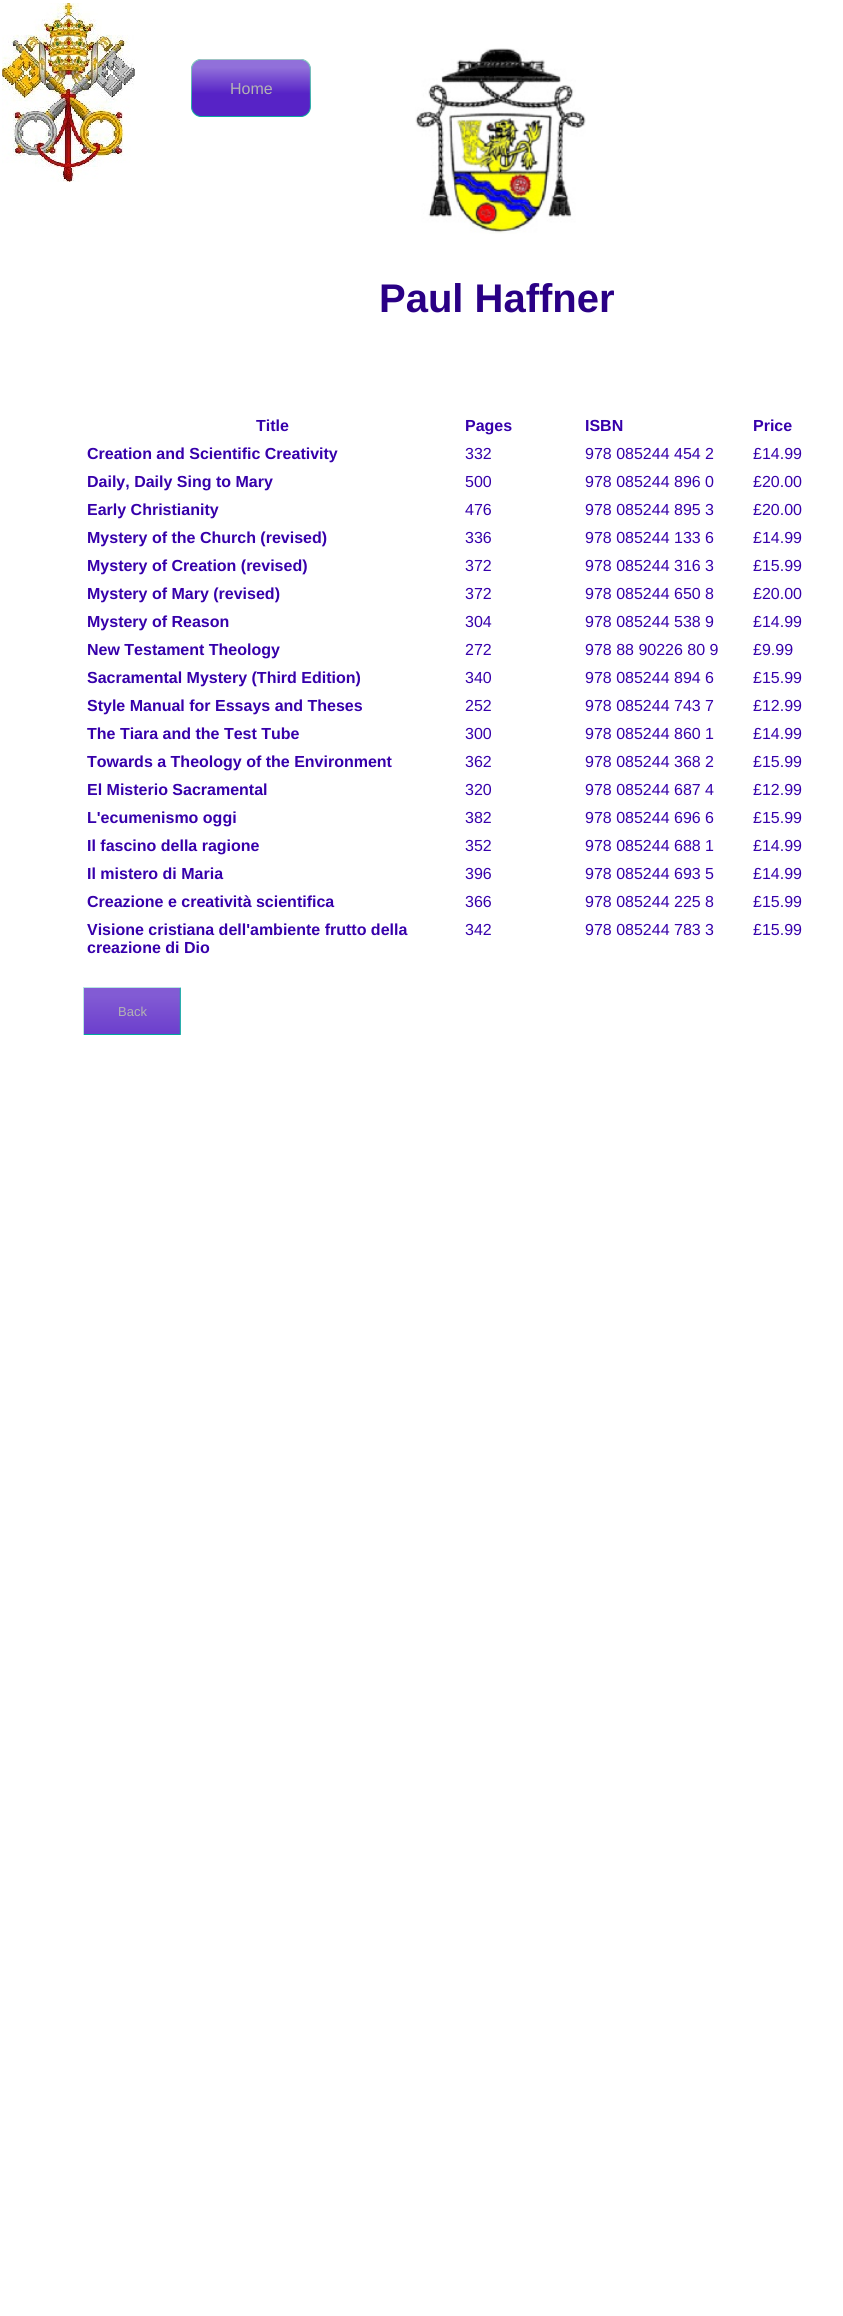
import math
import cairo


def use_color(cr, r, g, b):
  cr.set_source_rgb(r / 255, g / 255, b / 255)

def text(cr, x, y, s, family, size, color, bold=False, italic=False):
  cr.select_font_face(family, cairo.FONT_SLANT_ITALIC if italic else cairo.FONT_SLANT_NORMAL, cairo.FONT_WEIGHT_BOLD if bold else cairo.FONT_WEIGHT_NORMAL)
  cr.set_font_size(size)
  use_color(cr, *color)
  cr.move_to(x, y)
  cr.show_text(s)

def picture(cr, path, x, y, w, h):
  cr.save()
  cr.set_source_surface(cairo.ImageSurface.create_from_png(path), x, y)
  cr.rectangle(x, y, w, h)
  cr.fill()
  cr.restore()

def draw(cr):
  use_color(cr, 255, 255, 255)
  cr.paint()
  picture(cr, "img_01.png", 2, 3, 133, 179)
  picture(cr, "img_02.png", 191, 59, 120, 58)
  picture(cr, "img_03.png", 415, 48, 171, 186)
  picture(cr, "img_04.png", 83, 987, 98, 48)
  text(cr, 230, 94, "Home", "Liberation Sans", 16, (179, 179, 179))
  text(cr, 379, 312, "Paul Haffner", "Liberation Sans", 40, (42, 0, 133), bold=True)
  text(cr, 256, 431, "Title", "Liberation Sans", 16, (54, 0, 171), bold=True)
  text(cr, 465, 431, "Pages", "Liberation Sans", 16, (54, 0, 171), bold=True)
  text(cr, 585, 431, "ISBN", "Liberation Sans", 16, (54, 0, 171), bold=True)
  text(cr, 753, 431, "Price", "Liberation Sans", 16, (54, 0, 171), bold=True)
  text(cr, 87, 459, "Creation and Scientific Creativity", "Liberation Sans", 16, (54, 0, 171), bold=True)
  text(cr, 465, 459, "332", "Liberation Sans", 16, (54, 0, 171))
  text(cr, 585, 459, "978 085244 454 2", "Liberation Sans", 16, (54, 0, 171))
  text(cr, 753, 459, "£14.99", "Liberation Sans", 16, (54, 0, 171))
  text(cr, 87, 487, "Daily, Daily Sing to Mary", "Liberation Sans", 16, (54, 0, 171), bold=True)
  text(cr, 465, 487, "500", "Liberation Sans", 16, (54, 0, 171))
  text(cr, 585, 487, "978 085244 896 0", "Liberation Sans", 16, (54, 0, 171))
  text(cr, 753, 487, "£20.00", "Liberation Sans", 16, (54, 0, 171))
  text(cr, 87, 515, "Early Christianity", "Liberation Sans", 16, (54, 0, 171), bold=True)
  text(cr, 465, 515, "476", "Liberation Sans", 16, (54, 0, 171))
  text(cr, 585, 515, "978 085244 895 3", "Liberation Sans", 16, (54, 0, 171))
  text(cr, 753, 515, "£20.00", "Liberation Sans", 16, (54, 0, 171))
  text(cr, 87, 543, "Mystery of the Church (revised)", "Liberation Sans", 16, (54, 0, 171), bold=True)
  text(cr, 465, 543, "336", "Liberation Sans", 16, (54, 0, 171))
  text(cr, 585, 543, "978 085244 133 6", "Liberation Sans", 16, (54, 0, 171))
  text(cr, 753, 543, "£14.99", "Liberation Sans", 16, (54, 0, 171))
  text(cr, 87, 571, "Mystery of Creation (revised)", "Liberation Sans", 16, (54, 0, 171), bold=True)
  text(cr, 465, 571, "372", "Liberation Sans", 16, (54, 0, 171))
  text(cr, 585, 571, "978 085244 316 3", "Liberation Sans", 16, (54, 0, 171))
  text(cr, 753, 571, "£15.99", "Liberation Sans", 16, (54, 0, 171))
  text(cr, 87, 599, "Mystery of Mary (revised)", "Liberation Sans", 16, (54, 0, 171), bold=True)
  text(cr, 465, 599, "372", "Liberation Sans", 16, (54, 0, 171))
  text(cr, 585, 599, "978 085244 650 8", "Liberation Sans", 16, (54, 0, 171))
  text(cr, 753, 599, "£20.00", "Liberation Sans", 16, (54, 0, 171))
  text(cr, 87, 627, "Mystery of Reason", "Liberation Sans", 16, (54, 0, 171), bold=True)
  text(cr, 465, 627, "304", "Liberation Sans", 16, (54, 0, 171))
  text(cr, 585, 627, "978 085244 538 9", "Liberation Sans", 16, (54, 0, 171))
  text(cr, 753, 627, "£14.99", "Liberation Sans", 16, (54, 0, 171))
  text(cr, 87, 655, "New Testament Theology", "Liberation Sans", 16, (54, 0, 171), bold=True)
  text(cr, 465, 655, "272", "Liberation Sans", 16, (54, 0, 171))
  text(cr, 585, 655, "978 88 90226 80 9", "Liberation Sans", 16, (54, 0, 171))
  text(cr, 753, 655, "£9.99", "Liberation Sans", 16, (54, 0, 171))
  text(cr, 87, 683, "Sacramental Mystery (Third Edition)", "Liberation Sans", 16, (54, 0, 171), bold=True)
  text(cr, 465, 683, "340", "Liberation Sans", 16, (54, 0, 171))
  text(cr, 585, 683, "978 085244 894 6", "Liberation Sans", 16, (54, 0, 171))
  text(cr, 753, 683, "£15.99", "Liberation Sans", 16, (54, 0, 171))
  text(cr, 87, 711, "Style Manual for Essays and Theses", "Liberation Sans", 16, (54, 0, 171), bold=True)
  text(cr, 465, 711, "252", "Liberation Sans", 16, (54, 0, 171))
  text(cr, 585, 711, "978 085244 743 7", "Liberation Sans", 16, (54, 0, 171))
  text(cr, 753, 711, "£12.99", "Liberation Sans", 16, (54, 0, 171))
  text(cr, 87, 739, "The Tiara and the Test Tube", "Liberation Sans", 16, (54, 0, 171), bold=True)
  text(cr, 465, 739, "300", "Liberation Sans", 16, (54, 0, 171))
  text(cr, 585, 739, "978 085244 860 1", "Liberation Sans", 16, (54, 0, 171))
  text(cr, 753, 739, "£14.99", "Liberation Sans", 16, (54, 0, 171))
  text(cr, 87, 767, "Towards a Theology of the Environment", "Liberation Sans", 16, (54, 0, 171), bold=True)
  text(cr, 465, 767, "362", "Liberation Sans", 16, (54, 0, 171))
  text(cr, 585, 767, "978 085244 368 2", "Liberation Sans", 16, (54, 0, 171))
  text(cr, 753, 767, "£15.99", "Liberation Sans", 16, (54, 0, 171))
  text(cr, 87, 795, "El Misterio Sacramental", "Liberation Sans", 16, (54, 0, 171), bold=True)
  text(cr, 465, 795, "320", "Liberation Sans", 16, (54, 0, 171))
  text(cr, 585, 795, "978 085244 687 4", "Liberation Sans", 16, (54, 0, 171))
  text(cr, 753, 795, "£12.99", "Liberation Sans", 16, (54, 0, 171))
  text(cr, 87, 823, "L'ecumenismo oggi", "Liberation Sans", 16, (54, 0, 171), bold=True)
  text(cr, 465, 823, "382", "Liberation Sans", 16, (54, 0, 171))
  text(cr, 585, 823, "978 085244 696 6", "Liberation Sans", 16, (54, 0, 171))
  text(cr, 753, 823, "£15.99", "Liberation Sans", 16, (54, 0, 171))
  text(cr, 87, 851, "Il fascino della ragione", "Liberation Sans", 16, (54, 0, 171), bold=True)
  text(cr, 465, 851, "352", "Liberation Sans", 16, (54, 0, 171))
  text(cr, 585, 851, "978 085244 688 1", "Liberation Sans", 16, (54, 0, 171))
  text(cr, 753, 851, "£14.99", "Liberation Sans", 16, (54, 0, 171))
  text(cr, 87, 879, "Il mistero di Maria", "Liberation Sans", 16, (54, 0, 171), bold=True)
  text(cr, 465, 879, "396", "Liberation Sans", 16, (54, 0, 171))
  text(cr, 585, 879, "978 085244 693 5", "Liberation Sans", 16, (54, 0, 171))
  text(cr, 753, 879, "£14.99", "Liberation Sans", 16, (54, 0, 171))
  text(cr, 87, 907, "Creazione e creatività scientifica", "Liberation Sans", 16, (54, 0, 171), bold=True)
  text(cr, 465, 907, "366", "Liberation Sans", 16, (54, 0, 171))
  text(cr, 585, 907, "978 085244 225 8", "Liberation Sans", 16, (54, 0, 171))
  text(cr, 753, 907, "£15.99", "Liberation Sans", 16, (54, 0, 171))
  text(cr, 87, 935, "Visione cristiana dell'ambiente frutto della", "Liberation Sans", 16, (54, 0, 171), bold=True)
  text(cr, 87, 953, "creazione di Dio", "Liberation Sans", 16, (54, 0, 171), bold=True)
  text(cr, 465, 935, "342", "Liberation Sans", 16, (54, 0, 171))
  text(cr, 585, 935, "978 085244 783 3", "Liberation Sans", 16, (54, 0, 171))
  text(cr, 753, 935, "£15.99", "Liberation Sans", 16, (54, 0, 171))
  text(cr, 118, 1016, "Back", "Liberation Sans", 13, (179, 179, 179))


surface = cairo.ImageSurface(cairo.FORMAT_RGB24, 843, 2316)
cr = cairo.Context(surface)
options = cairo.FontOptions()
options.set_hint_metrics(cairo.HINT_METRICS_OFF)
options.set_hint_style(cairo.HINT_STYLE_NONE)
cr.set_font_options(options)
cr.set_miter_limit(4)
draw(cr)
surface.write_to_png("out.png")
